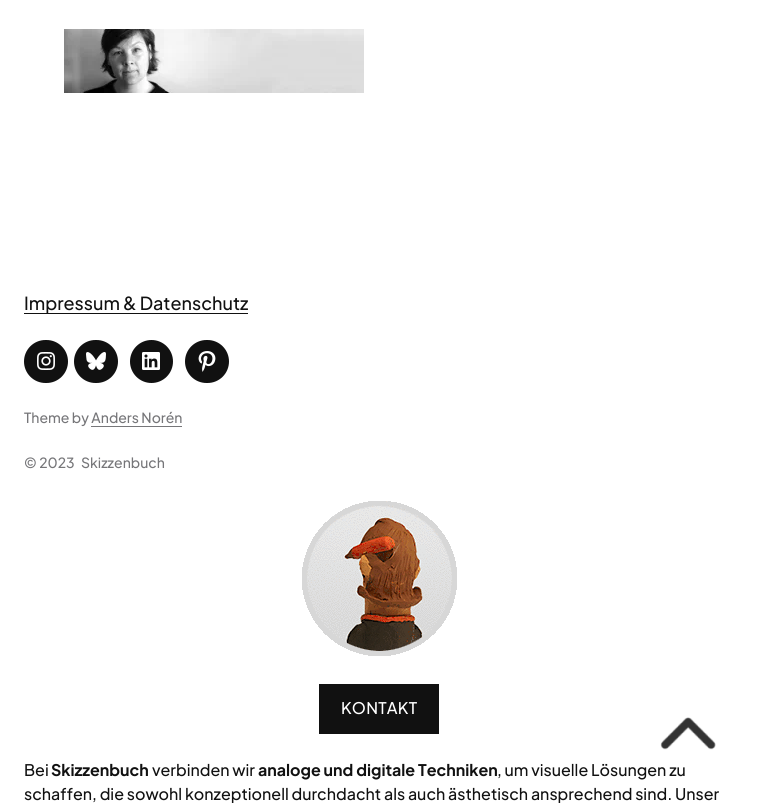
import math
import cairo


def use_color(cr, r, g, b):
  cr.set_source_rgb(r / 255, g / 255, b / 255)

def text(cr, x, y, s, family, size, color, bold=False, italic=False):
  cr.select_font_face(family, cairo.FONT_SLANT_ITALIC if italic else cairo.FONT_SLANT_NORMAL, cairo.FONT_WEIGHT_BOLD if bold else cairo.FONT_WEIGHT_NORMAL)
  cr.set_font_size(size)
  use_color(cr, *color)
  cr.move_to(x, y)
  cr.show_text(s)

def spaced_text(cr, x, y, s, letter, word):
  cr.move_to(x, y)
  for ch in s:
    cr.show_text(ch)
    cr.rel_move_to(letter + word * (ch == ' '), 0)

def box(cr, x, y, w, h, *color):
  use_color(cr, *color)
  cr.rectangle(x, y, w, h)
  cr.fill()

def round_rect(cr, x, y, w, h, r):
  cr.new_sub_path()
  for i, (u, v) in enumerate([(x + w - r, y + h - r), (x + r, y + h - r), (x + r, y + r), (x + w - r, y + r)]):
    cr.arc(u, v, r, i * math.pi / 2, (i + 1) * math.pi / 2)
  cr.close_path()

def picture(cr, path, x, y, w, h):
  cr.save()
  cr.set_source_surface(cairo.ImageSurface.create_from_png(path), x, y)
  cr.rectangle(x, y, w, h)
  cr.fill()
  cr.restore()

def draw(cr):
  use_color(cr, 255, 255, 255)
  cr.paint()
  picture(cr, "img_01.png", 64, 29, 300, 64)
  box(cr, 24, 313, 224, 1, 17, 17, 17)
  round_rect(cr, 24, 340, 44, 43, 21.5)
  cr.fill()
  picture(cr, "img_02.png", 37, 352, 18, 18)
  round_rect(cr, 74, 340, 44, 43, 21.5)
  cr.fill()
  picture(cr, "img_03.png", 86, 352, 20, 18)
  cr.arc(151.5, 361.5, 21.5, 0, 2 * math.pi)
  cr.fill()
  picture(cr, "img_04.png", 142, 352, 18, 18)
  round_rect(cr, 185, 340, 44, 43, 21.5)
  cr.fill()
  picture(cr, "img_05.png", 198, 351, 18, 21)
  box(cr, 91, 426, 91, 1, 118, 118, 121)
  picture(cr, "img_06.png", 302, 501, 155, 155)
  box(cr, 319, 684, 120, 50, 17, 17, 17)
  picture(cr, "img_07.png", 660, 717, 56, 33)
  text(cr, 24, 310, "Impressum & Datenschutz", "Plus Jakarta Sans Medium", 18, (17, 17, 17))
  text(cr, 24, 423, "Theme by Anders Norén", "Plus Jakarta Sans Medium", 14, (118, 118, 121))
  text(cr, 24, 468, "© 2023", "Plus Jakarta Sans Medium", 14, (118, 118, 121))
  text(cr, 81, 468, "Skizzenbuch", "Plus Jakarta Sans Medium", 14, (118, 118, 121))
  cr.set_font_size(16)
  use_color(cr, 255, 255, 255)
  spaced_text(cr, 341, 714, "KONTAKT", 0.25, 0)
  text(cr, 24, 776, "Bei", "Plus Jakarta Sans Medium", 16, (17, 17, 17))
  text(cr, 51, 776, "Skizzenbuch", "Plus Jakarta Sans", 16, (17, 17, 17), bold=True)
  text(cr, 152, 776, "verbinden wir", "Plus Jakarta Sans Medium", 16, (17, 17, 17))
  text(cr, 258, 776, "analoge und digitale Techniken", "Plus Jakarta Sans", 16, (17, 17, 17), bold=True)
  text(cr, 497, 776, ", um visuelle Lösungen zu", "Plus Jakarta Sans Medium", 16, (17, 17, 17))
  text(cr, 24, 800, "schaffen, die sowohl konzeptionell durchdacht als auch ästhetisch ansprechend sind. Unser", "Plus Jakarta Sans Medium", 16, (17, 17, 17))


surface = cairo.ImageSurface(cairo.FORMAT_RGB24, 758, 803)
cr = cairo.Context(surface)
options = cairo.FontOptions()
options.set_hint_metrics(cairo.HINT_METRICS_OFF)
options.set_hint_style(cairo.HINT_STYLE_NONE)
cr.set_font_options(options)
cr.set_miter_limit(4)
draw(cr)
surface.write_to_png("out.png")
